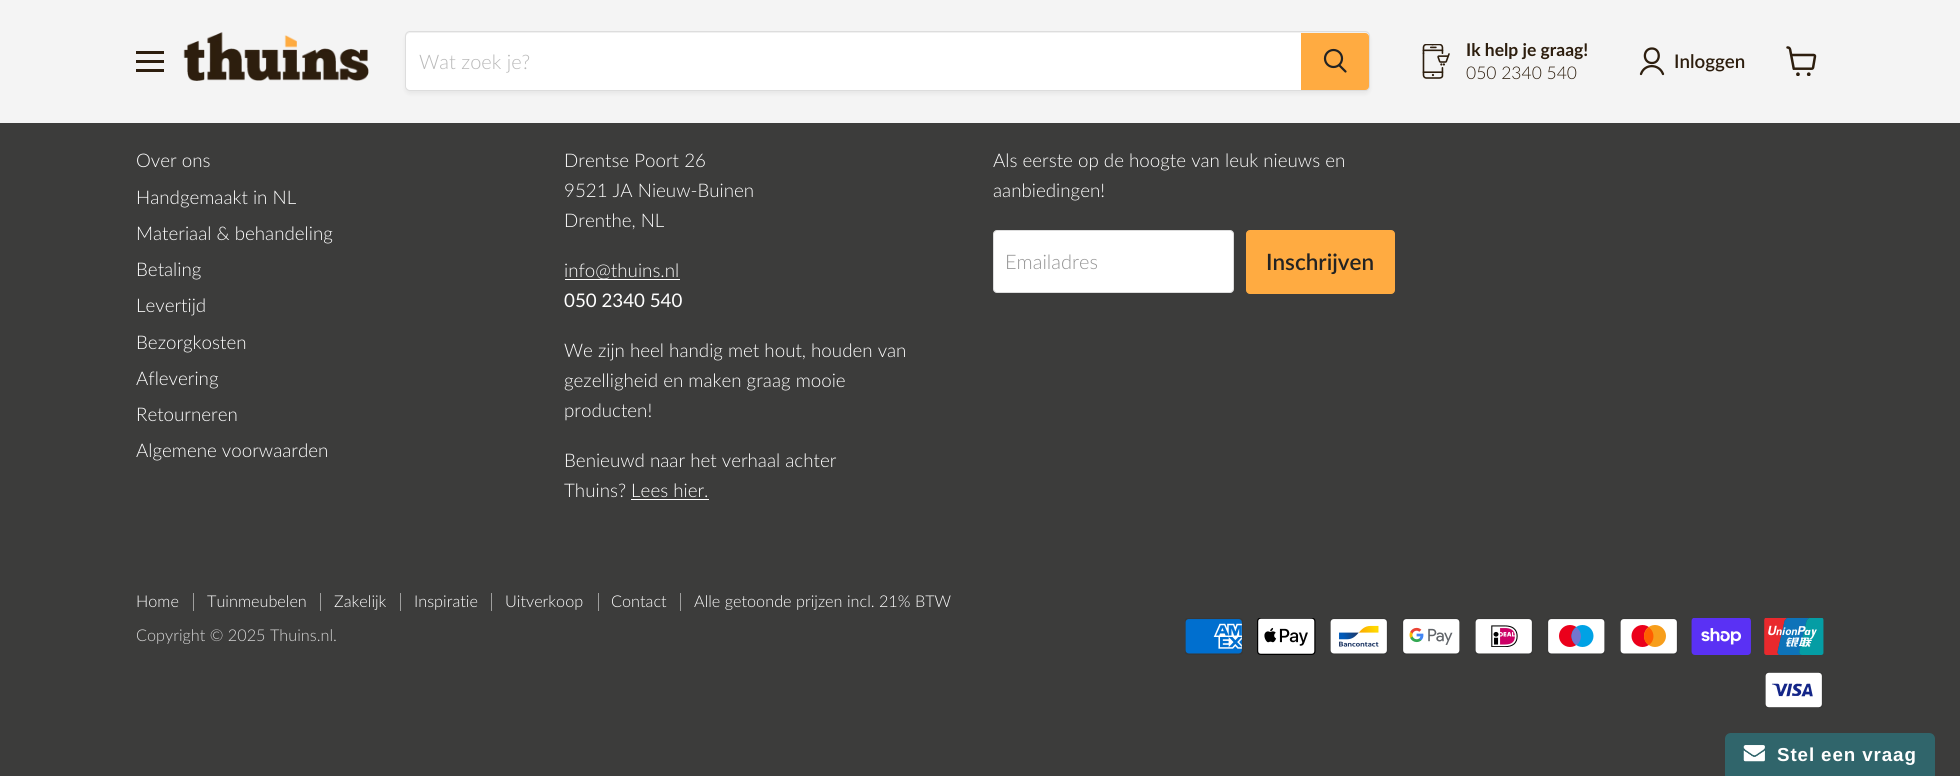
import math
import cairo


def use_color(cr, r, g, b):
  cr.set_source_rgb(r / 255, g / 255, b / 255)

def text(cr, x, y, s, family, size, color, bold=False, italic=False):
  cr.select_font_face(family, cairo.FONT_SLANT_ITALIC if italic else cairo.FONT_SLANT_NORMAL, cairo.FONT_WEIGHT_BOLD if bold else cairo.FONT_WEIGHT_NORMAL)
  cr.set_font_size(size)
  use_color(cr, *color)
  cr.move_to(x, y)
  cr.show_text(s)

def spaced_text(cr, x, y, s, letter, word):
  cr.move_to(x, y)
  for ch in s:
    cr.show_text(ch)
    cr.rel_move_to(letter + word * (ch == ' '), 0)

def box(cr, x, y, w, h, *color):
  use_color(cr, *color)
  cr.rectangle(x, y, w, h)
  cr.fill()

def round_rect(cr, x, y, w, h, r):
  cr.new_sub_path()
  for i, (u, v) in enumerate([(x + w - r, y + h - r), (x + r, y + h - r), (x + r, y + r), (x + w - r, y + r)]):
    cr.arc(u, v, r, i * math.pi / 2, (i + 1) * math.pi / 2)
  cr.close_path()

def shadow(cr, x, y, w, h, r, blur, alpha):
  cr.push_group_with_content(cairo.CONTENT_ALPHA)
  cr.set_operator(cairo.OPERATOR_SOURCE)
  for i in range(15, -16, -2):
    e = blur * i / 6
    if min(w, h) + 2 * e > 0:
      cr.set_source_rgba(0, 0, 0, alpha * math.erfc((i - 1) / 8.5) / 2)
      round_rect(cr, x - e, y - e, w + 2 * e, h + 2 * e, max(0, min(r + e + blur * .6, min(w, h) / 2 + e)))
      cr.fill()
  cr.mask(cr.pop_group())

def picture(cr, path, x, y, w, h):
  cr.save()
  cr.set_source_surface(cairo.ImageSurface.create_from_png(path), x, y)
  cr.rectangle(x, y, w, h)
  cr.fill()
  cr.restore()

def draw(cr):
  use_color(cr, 60, 60, 59)
  cr.paint()
  box(cr, 0, 0, 1960, 123, 244, 244, 244)
  box(cr, 136, 51, 28, 3, 45, 30, 14)
  box(cr, 136, 60, 28, 3, 45, 30, 14)
  box(cr, 136, 69, 28, 3, 45, 30, 14)
  picture(cr, "img_01.png", 183, 32, 186, 49)
  use_color(cr, 128, 128, 128)
  shadow(cr, 405, 34, 965, 60, 5, 2, 0.11)
  round_rect(cr, 405.5, 31.5, 964, 59, 4.5)
  use_color(cr, 221, 221, 221)
  cr.set_line_width(1)
  cr.stroke()
  use_color(cr, 255, 255, 255)
  cr.new_path()
  cr.move_to(410, 33)
  cr.line_to(1301, 33)
  cr.line_to(1301, 90)
  cr.line_to(410, 90)
  cr.curve_to(408, 90, 406, 88, 406, 86)
  cr.line_to(406, 37)
  cr.curve_to(406, 35, 408, 33, 410, 33)
  cr.close_path()
  cr.fill()
  use_color(cr, 255, 171, 65)
  cr.new_path()
  cr.move_to(1301.5, 33.5)
  cr.line_to(1365, 33.5)
  cr.curve_to(1367, 33.5, 1368.5, 35, 1368.5, 37)
  cr.line_to(1368.5, 86)
  cr.curve_to(1368.5, 88, 1367, 89.5, 1365, 89.5)
  cr.line_to(1301.5, 89.5)
  cr.close_path()
  cr.fill_preserve()
  cr.stroke()
  cr.new_path()
  cr.move_to(1345.5, 71.5)
  cr.line_to(1339.5, 65.5)
  use_color(cr, 35, 35, 35)
  cr.set_line_width(2.2)
  cr.set_line_cap(cairo.LINE_CAP_ROUND)
  cr.stroke()
  cr.arc(1333.5, 58.5, 8.5, 0, 2 * math.pi)
  cr.set_line_cap(cairo.LINE_CAP_BUTT)
  cr.stroke()
  picture(cr, "img_02.png", 1422, 44, 28, 35)
  cr.new_path()
  cr.move_to(1652, 63)
  cr.curve_to(1661, 63, 1661, 48.5, 1652, 48.5)
  cr.curve_to(1642.5, 48.5, 1642.5, 63, 1652, 63)
  cr.close_path()
  cr.move_to(1663, 74)
  cr.curve_to(1659, 63.5, 1644.5, 63.5, 1641, 74)
  use_color(cr, 45, 30, 14)
  cr.set_line_width(2.3)
  cr.set_line_cap(cairo.LINE_CAP_ROUND)
  cr.set_line_join(cairo.LINE_JOIN_ROUND)
  cr.stroke()
  picture(cr, "img_03.png", 1786, 46, 31, 30)
  box(cr, 565, 279, 115, 1, 255, 255, 255)
  box(cr, 631, 499, 78, 1, 255, 255, 255)
  round_rect(cr, 993.5, 230.5, 240, 62, 3.5)
  cr.fill_preserve()
  use_color(cr, 221, 221, 221)
  cr.set_line_width(1)
  cr.set_line_cap(cairo.LINE_CAP_BUTT)
  cr.set_line_join(cairo.LINE_JOIN_MITER)
  cr.stroke()
  use_color(cr, 255, 171, 65)
  round_rect(cr, 1246.5, 230.5, 148, 63, 3.5)
  cr.fill_preserve()
  cr.stroke()
  box(cr, 193, 593, 1, 18, 158, 158, 157)
  box(cr, 320, 593, 1, 18, 158, 158, 157)
  box(cr, 400, 593, 1, 18, 158, 158, 157)
  box(cr, 491, 593, 1, 18, 158, 158, 157)
  box(cr, 598, 593, 1, 18, 158, 158, 157)
  box(cr, 680, 593, 1, 18, 158, 158, 157)
  picture(cr, "img_04.png", 1185, 618, 58, 37)
  picture(cr, "img_05.png", 1257, 618, 59, 37)
  picture(cr, "img_06.png", 1330, 618, 58, 37)
  picture(cr, "img_07.png", 1402, 618, 58, 37)
  picture(cr, "img_08.png", 1475, 618, 58, 37)
  picture(cr, "img_09.png", 1547, 618, 58, 37)
  picture(cr, "img_10.png", 1620, 618, 58, 37)
  picture(cr, "img_11.png", 1691, 618, 60, 37)
  picture(cr, "img_12.png", 1764, 618, 60, 37)
  picture(cr, "img_13.png", 1765, 672, 58, 36)
  use_color(cr, 48, 101, 107)
  cr.new_path()
  cr.move_to(1731, 733)
  cr.line_to(1929, 733)
  cr.curve_to(1932.5, 733, 1935, 735.5, 1935, 739)
  cr.line_to(1935, 776)
  cr.line_to(1725, 776)
  cr.line_to(1725, 739)
  cr.curve_to(1725, 735.5, 1727.5, 733, 1731, 733)
  cr.close_path()
  cr.fill()
  picture(cr, "img_14.png", 1743, 745, 22, 17)
  text(cr, 419, 69, "Wat zoek je?", "Lato Light", 20, (184, 184, 184))
  text(cr, 1466, 56, "Ik help je graag!", "Lato", 17.5, (45, 30, 14), bold=True)
  text(cr, 1466, 79, "050 2340 540", "Lato Light", 17.5, (45, 30, 14))
  text(cr, 1674, 68, "Inloggen", "Lato SemiBold", 18.75, (45, 30, 14))
  text(cr, 136, 167, "Over ons", "Lato Light", 18.75, (255, 255, 255))
  text(cr, 136, 204, "Handgemaakt in NL", "Lato Light", 18.75, (255, 255, 255))
  text(cr, 136, 240, "Materiaal & behandeling", "Lato Light", 18.75, (255, 255, 255))
  text(cr, 136, 276, "Betaling", "Lato Light", 18.75, (255, 255, 255))
  text(cr, 136, 312, "Levertijd", "Lato Light", 18.75, (255, 255, 255))
  text(cr, 136, 349, "Bezorgkosten", "Lato Light", 18.75, (255, 255, 255))
  text(cr, 136, 385, "Aflevering", "Lato Light", 18.75, (255, 255, 255))
  text(cr, 136, 421, "Retourneren", "Lato Light", 18.75, (255, 255, 255))
  text(cr, 136, 457, "Algemene voorwaarden", "Lato Light", 18.75, (255, 255, 255))
  text(cr, 564, 167, "Drentse Poort 26", "Lato Light", 18.75, (255, 255, 255))
  text(cr, 564, 197, "9521 JA Nieuw-Buinen", "Lato Light", 18.75, (255, 255, 255))
  text(cr, 564, 227, "Drenthe, NL", "Lato Light", 18.75, (255, 255, 255))
  text(cr, 564, 277, "info@thuins.nl", "Lato Light", 18.75, (255, 255, 255))
  text(cr, 564, 307, "050 2340 540", "Lato", 18.75, (255, 255, 255))
  text(cr, 564, 357, "We zijn heel handig met hout, houden van", "Lato Light", 18.75, (255, 255, 255))
  text(cr, 564, 387, "gezelligheid en maken graag mooie", "Lato Light", 18.75, (255, 255, 255))
  text(cr, 564, 417, "producten!", "Lato Light", 18.75, (255, 255, 255))
  text(cr, 564, 467, "Benieuwd naar het verhaal achter", "Lato Light", 18.75, (255, 255, 255))
  text(cr, 564, 497, "Thuins? Lees hier.", "Lato Light", 18.75, (255, 255, 255))
  text(cr, 993, 167, "Als eerste op de hoogte van leuk nieuws en", "Lato Light", 18.75, (255, 255, 255))
  text(cr, 993, 197, "aanbiedingen!", "Lato Light", 18.75, (255, 255, 255))
  text(cr, 1005, 269, "Emailadres", "Lato Light", 20, (148, 148, 148))
  text(cr, 1266, 270, "Inschrijven", "Lato SemiBold", 22.5, (35, 35, 35))
  text(cr, 136, 607, "Home", "Lato Light", 16.25, (255, 255, 255))
  text(cr, 207, 607, "Tuinmeubelen", "Lato Light", 16.25, (255, 255, 255))
  text(cr, 334, 607, "Zakelijk", "Lato Light", 16.25, (255, 255, 255))
  text(cr, 414, 607, "Inspiratie", "Lato Light", 16.25, (255, 255, 255))
  text(cr, 505, 607, "Uitverkoop", "Lato Light", 16.25, (255, 255, 255))
  text(cr, 611, 607, "Contact", "Lato Light", 16.25, (255, 255, 255))
  text(cr, 694, 607, "Alle getoonde prijzen incl. 21% BTW", "Lato Light", 16.25, (255, 255, 255))
  text(cr, 136, 641, "Copyright © 2025 Thuins.nl.", "Lato Light", 16.25, (216, 216, 216))
  cr.select_font_face("Liberation Sans", cairo.FONT_SLANT_NORMAL, cairo.FONT_WEIGHT_BOLD)
  cr.set_font_size(18.75)
  use_color(cr, 255, 255, 255)
  spaced_text(cr, 1777, 761, "Stel een vraag", 0.9, 0)


surface = cairo.ImageSurface(cairo.FORMAT_RGB24, 1960, 776)
cr = cairo.Context(surface)
options = cairo.FontOptions()
options.set_hint_metrics(cairo.HINT_METRICS_OFF)
options.set_hint_style(cairo.HINT_STYLE_NONE)
cr.set_font_options(options)
cr.set_miter_limit(4)
draw(cr)
surface.write_to_png("out.png")
